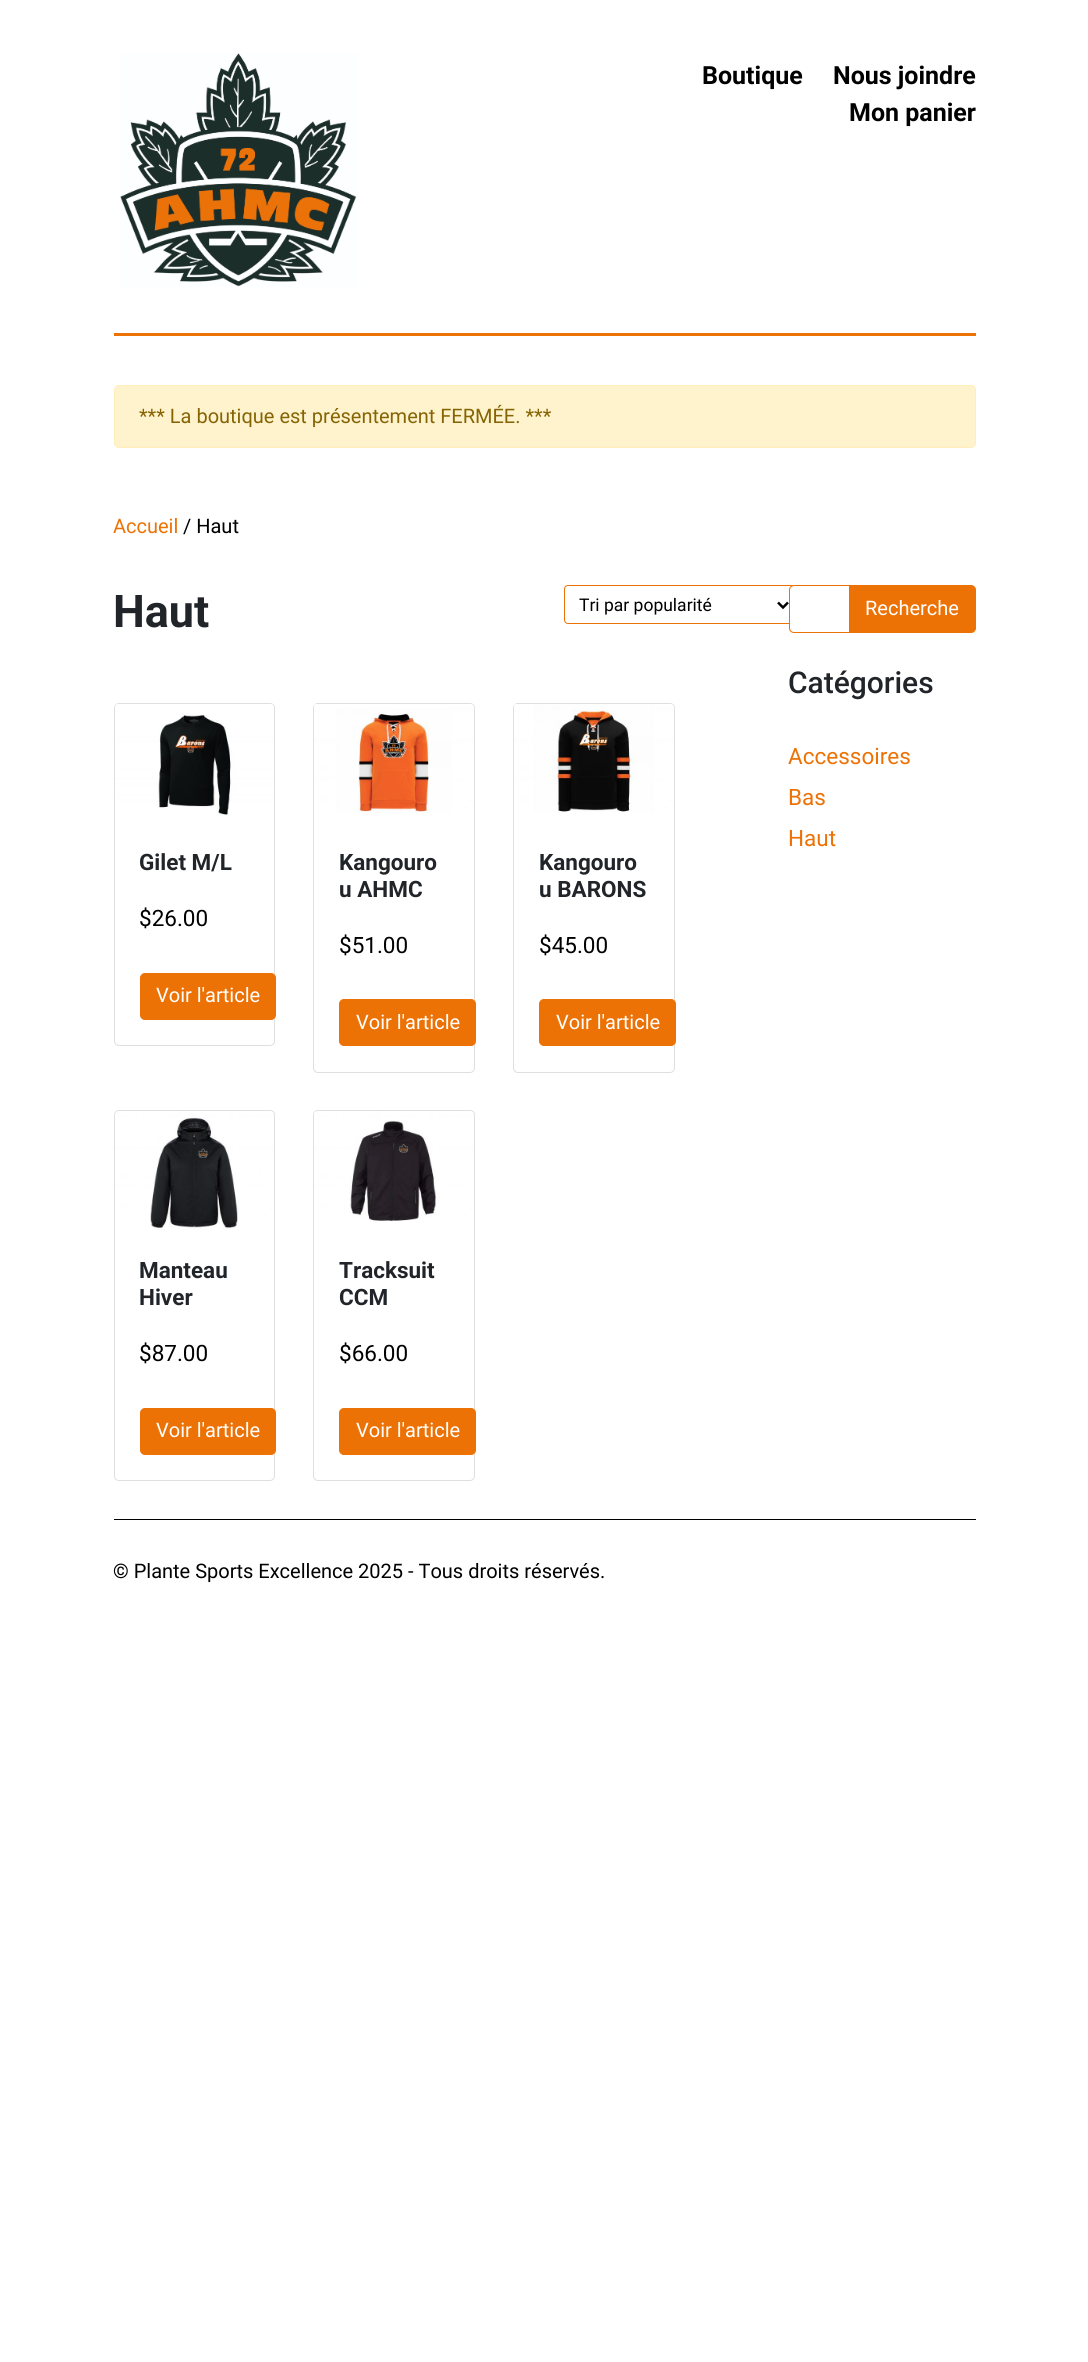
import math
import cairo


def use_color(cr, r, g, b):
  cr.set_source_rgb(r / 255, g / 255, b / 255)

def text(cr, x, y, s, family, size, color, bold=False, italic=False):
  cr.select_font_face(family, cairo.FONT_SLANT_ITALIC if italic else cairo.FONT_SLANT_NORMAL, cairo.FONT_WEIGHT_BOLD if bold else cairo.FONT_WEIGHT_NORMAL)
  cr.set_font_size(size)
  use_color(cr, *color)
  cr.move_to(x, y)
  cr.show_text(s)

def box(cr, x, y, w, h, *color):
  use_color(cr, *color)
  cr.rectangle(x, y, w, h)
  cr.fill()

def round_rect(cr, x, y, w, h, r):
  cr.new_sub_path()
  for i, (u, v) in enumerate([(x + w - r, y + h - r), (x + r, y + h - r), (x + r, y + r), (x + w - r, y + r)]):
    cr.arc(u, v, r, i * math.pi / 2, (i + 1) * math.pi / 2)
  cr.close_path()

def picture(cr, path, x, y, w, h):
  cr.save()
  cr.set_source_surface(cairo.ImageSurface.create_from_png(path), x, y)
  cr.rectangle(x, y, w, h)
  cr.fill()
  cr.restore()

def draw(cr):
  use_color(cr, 255, 255, 255)
  cr.paint()
  box(cr, 114, 333, 862, 3, 236, 114, 6)
  picture(cr, "img_01.png", 120, 53, 237, 234)
  use_color(cr, 255, 243, 205)
  round_rect(cr, 114.5, 385.5, 861, 62, 4.5)
  cr.fill_preserve()
  use_color(cr, 255, 238, 186)
  cr.set_line_width(1)
  cr.stroke()
  round_rect(cr, 564.5, 585.5, 230, 38, 3.5)
  use_color(cr, 236, 114, 6)
  cr.stroke()
  cr.new_path()
  cr.move_to(778, 602.5)
  cr.line_to(783, 607.5)
  cr.line_to(788, 602.5)
  use_color(cr, 0, 0, 0)
  cr.set_line_width(2.5)
  cr.stroke()
  use_color(cr, 255, 255, 255)
  cr.new_path()
  cr.move_to(794, 586)
  cr.line_to(849, 586)
  cr.line_to(849, 631)
  cr.line_to(794, 631)
  cr.curve_to(792, 631, 790, 629, 790, 627)
  cr.line_to(790, 590)
  cr.curve_to(790, 588, 792, 586, 794, 586)
  cr.close_path()
  cr.fill()
  cr.new_path()
  cr.move_to(794, 585.5)
  cr.line_to(849.5, 585.5)
  cr.line_to(849.5, 632.5)
  cr.line_to(794, 632.5)
  cr.curve_to(791.5, 632.5, 789.5, 630.5, 789.5, 628)
  cr.line_to(789.5, 590)
  cr.curve_to(789.5, 587.5, 791.5, 585.5, 794, 585.5)
  cr.close_path()
  use_color(cr, 236, 114, 6)
  cr.set_line_width(1)
  cr.stroke()
  cr.new_path()
  cr.move_to(849.5, 585.5)
  cr.line_to(971, 585.5)
  cr.curve_to(973.5, 585.5, 975.5, 587.5, 975.5, 590)
  cr.line_to(975.5, 628)
  cr.curve_to(975.5, 630.5, 973.5, 632.5, 971, 632.5)
  cr.line_to(849.5, 632.5)
  cr.close_path()
  cr.fill_preserve()
  cr.stroke()
  round_rect(cr, 114.5, 703.5, 160, 342, 4.5)
  use_color(cr, 223, 223, 223)
  cr.stroke()
  picture(cr, "img_02.png", 115, 704, 159, 112)
  use_color(cr, 236, 114, 6)
  round_rect(cr, 140.5, 973.5, 135, 46, 4.5)
  cr.fill_preserve()
  cr.stroke()
  round_rect(cr, 313.5, 703.5, 161, 369, 4.5)
  use_color(cr, 223, 223, 223)
  cr.stroke()
  picture(cr, "img_03.png", 314, 704, 160, 109)
  use_color(cr, 236, 114, 6)
  round_rect(cr, 339.5, 999.5, 136, 46, 4.5)
  cr.fill_preserve()
  cr.stroke()
  round_rect(cr, 513.5, 703.5, 161, 369, 4.5)
  use_color(cr, 223, 223, 223)
  cr.stroke()
  picture(cr, "img_04.png", 514, 704, 160, 108)
  use_color(cr, 236, 114, 6)
  round_rect(cr, 539.5, 999.5, 136, 46, 4.5)
  cr.fill_preserve()
  cr.stroke()
  round_rect(cr, 114.5, 1110.5, 160, 370, 4.5)
  use_color(cr, 223, 223, 223)
  cr.stroke()
  picture(cr, "img_05.png", 115, 1111, 159, 119)
  use_color(cr, 236, 114, 6)
  round_rect(cr, 140.5, 1408.5, 135, 46, 4.5)
  cr.fill_preserve()
  cr.stroke()
  round_rect(cr, 313.5, 1110.5, 161, 370, 4.5)
  use_color(cr, 223, 223, 223)
  cr.stroke()
  picture(cr, "img_06.png", 314, 1111, 160, 110)
  use_color(cr, 236, 114, 6)
  round_rect(cr, 339.5, 1408.5, 136, 46, 4.5)
  cr.fill_preserve()
  cr.stroke()
  box(cr, 114, 1519, 862, 1, 0, 0, 0)
  text(cr, 702, 84, "Boutique", "Roboto", 25, (0, 0, 0), bold=True)
  text(cr, 833, 84, "Nous joindre", "Roboto", 25, (0, 0, 0), bold=True)
  text(cr, 849, 121, "Mon panier", "Roboto", 25, (0, 0, 0), bold=True)
  text(cr, 139, 423, "*** La boutique est présentement FERMÉE. ***", "Roboto", 20, (133, 100, 4))
  text(cr, 113, 533, "Accueil", "Roboto", 20, (236, 114, 6))
  text(cr, 183, 533, "/ Haut", "Roboto", 20, (0, 0, 0))
  text(cr, 113, 627, "Haut", "Roboto", 45, (33, 37, 41), bold=True)
  text(cr, 579, 611, "Tri par popularité", "Roboto", 17.5, (0, 0, 0))
  text(cr, 865, 615, "Recherche", "Roboto", 20, (255, 255, 255))
  text(cr, 788, 693, "Catégories", "Roboto Medium", 30, (33, 37, 41))
  text(cr, 788, 764, "Accessoires", "Roboto", 22.5, (236, 114, 6))
  text(cr, 788, 805, "Bas", "Roboto", 22.5, (236, 114, 6))
  text(cr, 788, 846, "Haut", "Roboto", 22.5, (236, 114, 6))
  text(cr, 139, 870, "Gilet M/L", "Roboto", 22.5, (33, 37, 41), bold=True)
  text(cr, 139, 926, "$26.00", "Roboto", 22.5, (0, 0, 0))
  text(cr, 156, 1002, "Voir l'article", "Roboto", 20, (255, 255, 255))
  text(cr, 339, 870, "Kangouro", "Roboto", 22.5, (33, 37, 41), bold=True)
  text(cr, 339, 897, "u AHMC", "Roboto", 22.5, (33, 37, 41), bold=True)
  text(cr, 339, 953, "$51.00", "Roboto", 22.5, (0, 0, 0))
  text(cr, 356, 1029, "Voir l'article", "Roboto", 20, (255, 255, 255))
  text(cr, 539, 870, "Kangouro", "Roboto", 22.5, (33, 37, 41), bold=True)
  text(cr, 539, 897, "u BARONS", "Roboto", 22.5, (33, 37, 41), bold=True)
  text(cr, 539, 953, "$45.00", "Roboto", 22.5, (0, 0, 0))
  text(cr, 556, 1029, "Voir l'article", "Roboto", 20, (255, 255, 255))
  text(cr, 139, 1278, "Manteau", "Roboto", 22.5, (33, 37, 41), bold=True)
  text(cr, 139, 1305, "Hiver", "Roboto", 22.5, (33, 37, 41), bold=True)
  text(cr, 139, 1361, "$87.00", "Roboto", 22.5, (0, 0, 0))
  text(cr, 156, 1437, "Voir l'article", "Roboto", 20, (255, 255, 255))
  text(cr, 339, 1278, "Tracksuit", "Roboto", 22.5, (33, 37, 41), bold=True)
  text(cr, 339, 1305, "CCM", "Roboto", 22.5, (33, 37, 41), bold=True)
  text(cr, 339, 1361, "$66.00", "Roboto", 22.5, (0, 0, 0))
  text(cr, 356, 1437, "Voir l'article", "Roboto", 20, (255, 255, 255))
  text(cr, 113, 1578, "© Plante Sports Excellence 2025 - Tous droits réservés.", "Roboto", 20, (0, 0, 0))


surface = cairo.ImageSurface(cairo.FORMAT_RGB24, 1088, 2362)
cr = cairo.Context(surface)
options = cairo.FontOptions()
options.set_hint_metrics(cairo.HINT_METRICS_OFF)
options.set_hint_style(cairo.HINT_STYLE_NONE)
cr.set_font_options(options)
cr.set_miter_limit(4)
draw(cr)
surface.write_to_png("out.png")
